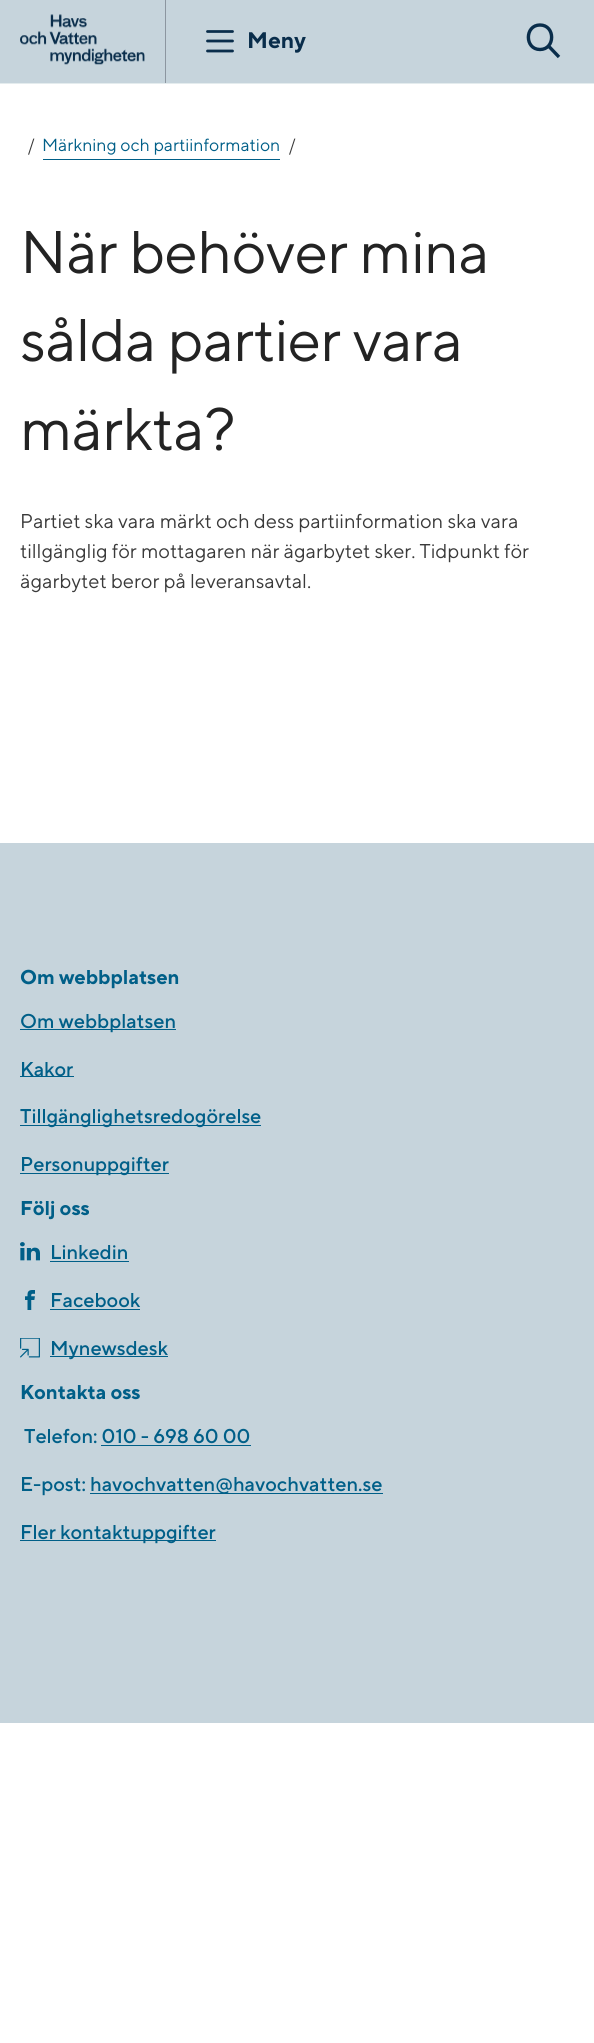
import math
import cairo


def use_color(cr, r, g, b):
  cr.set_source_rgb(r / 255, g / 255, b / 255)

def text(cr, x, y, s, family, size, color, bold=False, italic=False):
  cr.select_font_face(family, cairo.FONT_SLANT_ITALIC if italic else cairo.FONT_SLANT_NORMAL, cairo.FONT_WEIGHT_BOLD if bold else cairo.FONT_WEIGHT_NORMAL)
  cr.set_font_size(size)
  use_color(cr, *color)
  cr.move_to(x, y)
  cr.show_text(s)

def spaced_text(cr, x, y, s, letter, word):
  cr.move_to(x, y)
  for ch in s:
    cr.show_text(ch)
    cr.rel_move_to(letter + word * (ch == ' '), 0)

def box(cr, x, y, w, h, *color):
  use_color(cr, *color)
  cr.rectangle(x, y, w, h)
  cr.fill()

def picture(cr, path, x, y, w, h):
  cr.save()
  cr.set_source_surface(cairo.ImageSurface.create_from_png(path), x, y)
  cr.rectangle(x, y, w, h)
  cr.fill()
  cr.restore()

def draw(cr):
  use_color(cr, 255, 255, 255)
  cr.paint()
  box(cr, 0, 0, 165, 83, 198, 212, 220)
  box(cr, 165, 0, 1, 83, 140, 150, 160)
  picture(cr, "img_01.png", 20, 14, 125, 51)
  box(cr, 166, 0, 428, 83, 198, 212, 220)
  cr.new_path()
  cr.move_to(207.5, 31.5)
  cr.line_to(232.5, 31.5)
  cr.move_to(207.5, 41)
  cr.line_to(232.5, 41)
  cr.move_to(207.5, 51)
  cr.line_to(232.5, 51)
  use_color(cr, 9, 45, 75)
  cr.set_line_width(2.8)
  cr.set_line_cap(cairo.LINE_CAP_ROUND)
  cr.set_line_join(cairo.LINE_JOIN_ROUND)
  cr.stroke()
  cr.new_path()
  cr.move_to(548.5, 46)
  cr.line_to(559, 57)
  cr.move_to(540, 25)
  cr.curve_to(555.5, 25, 555.5, 49.5, 540, 49.5)
  cr.curve_to(524.5, 49.5, 524.5, 25, 540, 25)
  cr.close_path()
  cr.set_line_width(3.4)
  cr.set_line_cap(cairo.LINE_CAP_BUTT)
  cr.set_line_join(cairo.LINE_JOIN_MITER)
  cr.stroke()
  box(cr, 0, 83, 594, 1, 228, 236, 238)
  box(cr, 43, 159, 237, 1, 0, 95, 136)
  box(cr, 0, 843, 594, 880, 198, 212, 220)
  box(cr, 20, 1029, 156, 1, 0, 95, 136)
  box(cr, 20, 1076, 54, 1, 0, 95, 136)
  box(cr, 20, 1125, 241, 1, 0, 95, 136)
  box(cr, 20, 1173, 149, 1, 0, 95, 136)
  picture(cr, "img_02.png", 20, 1242, 20, 19)
  box(cr, 50, 1261, 79, 1, 0, 95, 136)
  picture(cr, "img_03.png", 25, 1290, 10, 20)
  box(cr, 50, 1309, 90, 1, 0, 95, 136)
  picture(cr, "img_04.png", 20, 1338, 20, 20)
  box(cr, 50, 1356, 118, 1, 0, 95, 136)
  box(cr, 101, 1445, 150, 1, 0, 95, 136)
  box(cr, 90, 1493, 293, 1, 0, 95, 136)
  box(cr, 20, 1540, 196, 1, 0, 95, 136)
  text(cr, 247, 48, "Meny", "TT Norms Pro", 22.5, (9, 45, 75), bold=True)
  text(cr, 28, 151, "/", "TT Norms Pro", 17.5, (58, 58, 58))
  text(cr, 42, 151, "Märkning och partiinformation", "TT Norms Pro", 17.5, (0, 95, 136))
  text(cr, 289, 151, "/", "TT Norms Pro", 17.5, (58, 58, 58))
  cr.set_font_size(60)
  use_color(cr, 35, 35, 35)
  spaced_text(cr, 20, 273, "När behöver mina", -0.6, 0)
  spaced_text(cr, 20, 361, "sålda partier vara", -0.6, 0)
  spaced_text(cr, 20, 450, "märkta?", -0.6, 0)
  text(cr, 20, 528, "Partiet ska vara märkt och dess partiinformation ska vara", "TT Norms Pro", 20, (58, 58, 58))
  text(cr, 20, 558, "tillgänglig för mottagaren när ägarbytet sker. Tidpunkt för", "TT Norms Pro", 20, (58, 58, 58))
  text(cr, 20, 588, "ägarbytet beror på leveransavtal.", "TT Norms Pro", 20, (58, 58, 58))
  text(cr, 20, 984, "Om webbplatsen", "TT Norms Pro", 20, (0, 95, 136), bold=True)
  text(cr, 20, 1028, "Om webbplatsen", "TT Norms Pro Medium", 20, (0, 95, 136))
  text(cr, 20, 1076, "Kakor", "TT Norms Pro Medium", 20, (0, 95, 136))
  text(cr, 20, 1123, "Tillgänglighetsredogörelse", "TT Norms Pro Medium", 20, (0, 95, 136))
  text(cr, 20, 1171, "Personuppgifter", "TT Norms Pro Medium", 20, (0, 95, 136))
  text(cr, 20, 1215, "Följ oss", "TT Norms Pro", 20, (0, 95, 136), bold=True)
  text(cr, 50, 1259, "Linkedin", "TT Norms Pro Medium", 20, (0, 95, 136))
  text(cr, 50, 1307, "Facebook", "TT Norms Pro Medium", 20, (0, 95, 136))
  text(cr, 50, 1355, "Mynewsdesk", "TT Norms Pro Medium", 20, (0, 95, 136))
  text(cr, 20, 1399, "Kontakta oss", "TT Norms Pro", 20, (0, 95, 136), bold=True)
  text(cr, 24, 1443, "Telefon: 010 - 698 60 00", "TT Norms Pro Medium", 20, (0, 95, 136))
  text(cr, 20, 1491, "E-post:", "TT Norms Pro Medium", 20, (0, 95, 136))
  text(cr, 90, 1491, "havochvatten@havochvatten.se", "TT Norms Pro Medium", 20, (0, 95, 136))
  text(cr, 20, 1539, "Fler kontaktuppgifter", "TT Norms Pro Medium", 20, (0, 95, 136))


surface = cairo.ImageSurface(cairo.FORMAT_RGB24, 594, 2043)
cr = cairo.Context(surface)
options = cairo.FontOptions()
options.set_hint_metrics(cairo.HINT_METRICS_OFF)
options.set_hint_style(cairo.HINT_STYLE_NONE)
cr.set_font_options(options)
cr.set_miter_limit(4)
draw(cr)
surface.write_to_png("out.png")
